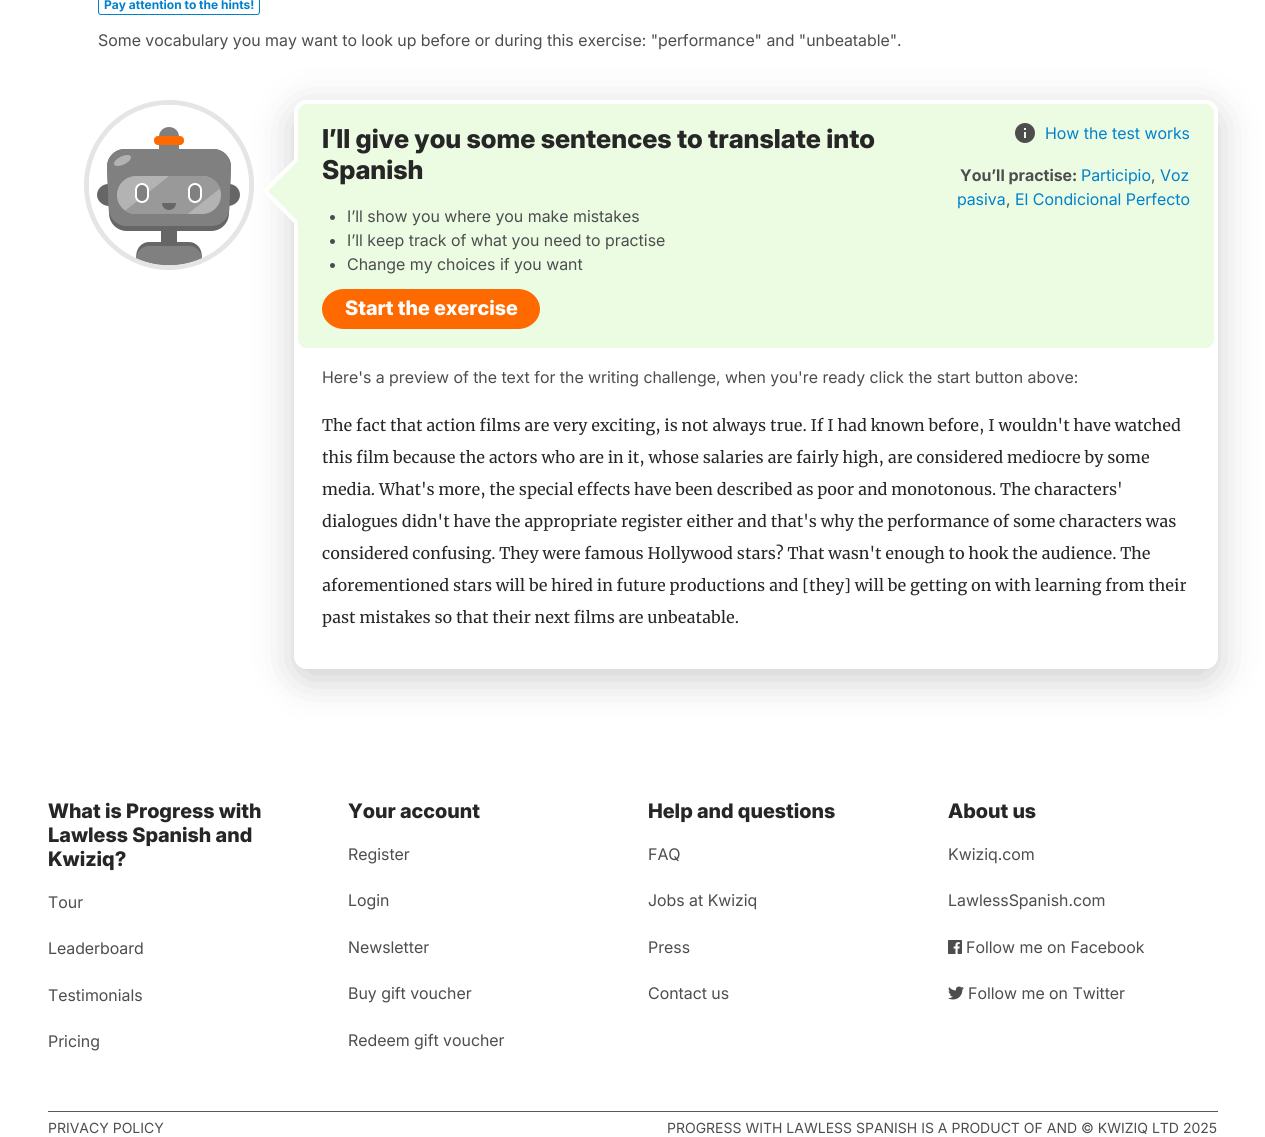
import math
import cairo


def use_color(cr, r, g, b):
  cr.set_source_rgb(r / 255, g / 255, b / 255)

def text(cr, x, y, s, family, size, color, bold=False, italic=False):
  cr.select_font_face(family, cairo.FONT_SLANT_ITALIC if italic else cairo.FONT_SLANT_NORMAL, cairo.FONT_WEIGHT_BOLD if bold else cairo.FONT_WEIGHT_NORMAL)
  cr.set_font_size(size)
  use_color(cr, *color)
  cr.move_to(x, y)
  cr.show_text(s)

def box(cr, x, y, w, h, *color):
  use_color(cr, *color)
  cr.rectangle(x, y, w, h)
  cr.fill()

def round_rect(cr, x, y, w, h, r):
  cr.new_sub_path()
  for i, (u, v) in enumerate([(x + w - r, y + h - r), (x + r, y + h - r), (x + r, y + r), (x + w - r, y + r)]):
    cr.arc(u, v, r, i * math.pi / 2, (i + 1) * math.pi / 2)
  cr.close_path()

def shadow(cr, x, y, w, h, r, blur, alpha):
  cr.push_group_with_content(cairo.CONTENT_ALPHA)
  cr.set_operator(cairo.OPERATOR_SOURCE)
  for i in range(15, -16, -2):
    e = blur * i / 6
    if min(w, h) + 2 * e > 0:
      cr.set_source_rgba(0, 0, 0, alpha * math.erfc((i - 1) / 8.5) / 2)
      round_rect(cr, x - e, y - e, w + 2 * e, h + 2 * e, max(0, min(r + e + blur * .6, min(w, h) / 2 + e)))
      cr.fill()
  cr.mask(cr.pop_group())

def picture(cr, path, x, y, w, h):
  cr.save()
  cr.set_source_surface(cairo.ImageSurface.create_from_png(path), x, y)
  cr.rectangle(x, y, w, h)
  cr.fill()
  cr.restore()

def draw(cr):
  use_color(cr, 255, 255, 255)
  cr.paint()
  round_rect(cr, 98.5, -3.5, 161, 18, 2.5)
  use_color(cr, 0, 129, 204)
  cr.set_line_width(1)
  cr.stroke()
  cr.arc(169, 185, 82.5, 0, 2 * math.pi)
  use_color(cr, 229, 229, 229)
  cr.set_line_width(5)
  cr.stroke()
  cr.save()
  cr.set_fill_rule(cairo.FILL_RULE_EVEN_ODD)
  cr.new_path()
  cr.move_to(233, 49)
  cr.line_to(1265, 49)
  cr.line_to(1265, 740)
  cr.line_to(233, 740)
  cr.close_path()
  cr.move_to(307, 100)
  cr.line_to(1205, 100)
  cr.curve_to(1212, 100, 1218, 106, 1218, 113)
  cr.line_to(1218, 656)
  cr.curve_to(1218, 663, 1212, 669, 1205, 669)
  cr.line_to(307, 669)
  cr.curve_to(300, 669, 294, 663, 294, 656)
  cr.line_to(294, 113)
  cr.curve_to(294, 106, 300, 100, 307, 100)
  cr.close_path()
  cr.clip()
  use_color(cr, 0, 0, 0)
  shadow(cr, 294, 110, 924, 569, 13, 20, 0.2)
  cr.restore()
  use_color(cr, 255, 255, 255)
  cr.arc(169, 185, 80, 0, 2 * math.pi)
  cr.fill()
  picture(cr, "img_01.png", 97, 127, 143, 138)
  use_color(cr, 255, 106, 0)
  round_rect(cr, 154, 136, 30, 9, 4)
  cr.fill()
  use_color(cr, 255, 255, 255)
  round_rect(cr, 135, 183, 14, 20, 7)
  cr.fill()
  use_color(cr, 128, 128, 128)
  round_rect(cr, 137, 185, 10, 16, 5)
  cr.fill()
  use_color(cr, 255, 255, 255)
  round_rect(cr, 188, 183, 14, 20, 7)
  cr.fill()
  use_color(cr, 128, 128, 128)
  round_rect(cr, 190, 185, 10, 16, 5)
  cr.fill()
  use_color(cr, 102, 102, 102)
  cr.new_path()
  cr.move_to(162, 203)
  cr.line_to(176, 203)
  cr.curve_to(176, 207, 173, 210, 169, 210)
  cr.curve_to(165, 210, 162, 207, 162, 203)
  cr.close_path()
  cr.fill()
  use_color(cr, 236, 252, 227)
  round_rect(cr, 296, 102, 920, 248, 11)
  cr.fill_preserve()
  use_color(cr, 255, 255, 255)
  cr.set_line_width(4)
  cr.stroke()
  use_color(cr, 236, 252, 227)
  cr.new_path()
  cr.move_to(298, 156)
  cr.line_to(333, 191)
  cr.line_to(298, 227)
  cr.line_to(262, 191)
  cr.close_path()
  cr.fill()
  use_color(cr, 255, 255, 255)
  cr.new_path()
  cr.move_to(297.5, 226.5)
  cr.line_to(262, 191)
  cr.line_to(268, 191)
  cr.line_to(297.5, 221)
  cr.close_path()
  cr.fill()
  cr.new_path()
  cr.move_to(262, 191)
  cr.line_to(297.5, 156)
  cr.line_to(297.5, 161.5)
  cr.line_to(268, 191)
  cr.close_path()
  cr.fill()
  use_color(cr, 236, 252, 227)
  round_rect(cr, 298, 104, 916, 244, 10)
  cr.fill()
  use_color(cr, 77, 77, 77)
  cr.arc(332.5, 217.5, 2.5, 0, 2 * math.pi)
  cr.fill()
  cr.arc(332.5, 241.5, 2.5, 0, 2 * math.pi)
  cr.fill()
  cr.arc(332.5, 265.5, 2.5, 0, 2 * math.pi)
  cr.fill()
  use_color(cr, 255, 106, 0)
  cr.new_path()
  cr.move_to(344, 289)
  cr.line_to(518, 289)
  cr.curve_to(530, 289, 540, 298, 540, 309)
  cr.curve_to(540, 320, 530, 329, 518, 329)
  cr.line_to(344, 329)
  cr.curve_to(332, 329, 322, 320, 322, 309)
  cr.curve_to(322, 298, 332, 289, 344, 289)
  cr.close_path()
  cr.fill()
  picture(cr, "img_02.png", 1015, 123, 20, 20)
  picture(cr, "img_03.png", 948, 940, 14, 14)
  picture(cr, "img_04.png", 948, 986, 16, 14)
  box(cr, 48, 1111, 1170, 1, 89, 89, 89)
  text(cr, 104, 9, "Pay attention to the hints!", "Inter", 12, (0, 129, 204), bold=True)
  text(cr, 98, 46, "Some vocabulary you may want to look up before or during this exercise: \"performance\" and \"unbeatable\".", "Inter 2", 16, (77, 77, 77))
  text(cr, 322, 148, "I’ll give you some sentences to translate into", "Inter 2 ExtraBold", 26, (38, 38, 38))
  text(cr, 322, 179, "Spanish", "Inter 2 ExtraBold", 26, (38, 38, 38))
  text(cr, 347, 222, "I’ll show you where you make mistakes", "Inter 2", 16, (77, 77, 77))
  text(cr, 347, 246, "I’ll keep track of what you need to practise", "Inter 2", 16, (77, 77, 77))
  text(cr, 347, 270, "Change my choices if you want", "Inter 2", 16, (77, 77, 77))
  text(cr, 345, 315, "Start the exercise", "Inter ExtraBold", 20, (255, 255, 255))
  text(cr, 1045, 139, "How the test works", "Inter 2", 16, (0, 129, 204))
  text(cr, 960, 181, "You’ll practise:", "Inter 2", 16, (77, 77, 77), bold=True)
  text(cr, 1081, 181, "Participio", "Inter 2", 16, (0, 129, 204))
  text(cr, 1151, 181, ",", "Inter 2", 16, (77, 77, 77))
  text(cr, 1160, 181, "Voz", "Inter 2", 16, (0, 129, 204))
  text(cr, 957, 205, "pasiva", "Inter 2", 16, (0, 129, 204))
  text(cr, 1006, 205, ",", "Inter 2", 16, (77, 77, 77))
  text(cr, 1015, 205, "El Condicional Perfecto", "Inter 2", 16, (0, 129, 204))
  text(cr, 322, 383, "Here's a preview of the text for the writing challenge, when you're ready click the start button above:", "Inter 2", 16, (77, 77, 77))
  text(cr, 322, 431, "The fact that action films are very exciting, is not always true. If I had known before, I wouldn't have watched", "Merriweather", 16, (38, 38, 38))
  text(cr, 322, 463, "this film because the actors who are in it, whose salaries are fairly high, are considered mediocre by some", "Merriweather", 16, (38, 38, 38))
  text(cr, 322, 495, "media. What's more, the special effects have been described as poor and monotonous. The characters'", "Merriweather", 16, (38, 38, 38))
  text(cr, 322, 527, "dialogues didn't have the appropriate register either and that's why the performance of some characters was", "Merriweather", 16, (38, 38, 38))
  text(cr, 322, 559, "considered confusing. They were famous Hollywood stars? That wasn't enough to hook the audience. The", "Merriweather", 16, (38, 38, 38))
  text(cr, 322, 591, "aforementioned stars will be hired in future productions and [they] will be getting on with learning from their", "Merriweather", 16, (38, 38, 38))
  text(cr, 322, 623, "past mistakes so that their next films are unbeatable.", "Merriweather", 16, (38, 38, 38))
  text(cr, 48, 818, "What is Progress with", "Inter ExtraBold", 20, (38, 38, 38))
  text(cr, 48, 842, "Lawless Spanish and", "Inter ExtraBold", 20, (38, 38, 38))
  text(cr, 48, 866, "Kwiziq?", "Inter ExtraBold", 20, (38, 38, 38))
  text(cr, 48, 908, "Tour", "Inter 2", 16, (77, 77, 77))
  text(cr, 48, 954, "Leaderboard", "Inter 2", 16, (77, 77, 77))
  text(cr, 48, 1001, "Testimonials", "Inter 2", 16, (77, 77, 77))
  text(cr, 48, 1047, "Pricing", "Inter 2", 16, (77, 77, 77))
  text(cr, 348, 818, "Your account", "Inter ExtraBold", 20, (38, 38, 38))
  text(cr, 348, 860, "Register", "Inter 2", 16, (77, 77, 77))
  text(cr, 348, 906, "Login", "Inter 2", 16, (77, 77, 77))
  text(cr, 348, 953, "Newsletter", "Inter 2", 16, (77, 77, 77))
  text(cr, 348, 999, "Buy gift voucher", "Inter 2", 16, (77, 77, 77))
  text(cr, 348, 1046, "Redeem gift voucher", "Inter 2", 16, (77, 77, 77))
  text(cr, 648, 818, "Help and questions", "Inter ExtraBold", 20, (38, 38, 38))
  text(cr, 648, 860, "FAQ", "Inter 2", 16, (77, 77, 77))
  text(cr, 648, 906, "Jobs at Kwiziq", "Inter 2", 16, (77, 77, 77))
  text(cr, 648, 953, "Press", "Inter 2", 16, (77, 77, 77))
  text(cr, 648, 999, "Contact us", "Inter 2", 16, (77, 77, 77))
  text(cr, 948, 818, "About us", "Inter ExtraBold", 20, (38, 38, 38))
  text(cr, 948, 860, "Kwiziq.com", "Inter 2", 16, (77, 77, 77))
  text(cr, 948, 906, "LawlessSpanish.com", "Inter 2", 16, (77, 77, 77))
  text(cr, 966, 953, "Follow me on Facebook", "Inter 2", 16, (77, 77, 77))
  text(cr, 968, 999, "Follow me on Twitter", "Inter 2", 16, (77, 77, 77))
  text(cr, 48, 1133, "PRIVACY POLICY", "Inter", 14, (77, 77, 77))
  text(cr, 667, 1133, "PROGRESS WITH LAWLESS SPANISH IS A PRODUCT OF AND © KWIZIQ LTD 2025", "Inter", 14, (77, 77, 77))


surface = cairo.ImageSurface(cairo.FORMAT_RGB24, 1265, 1137)
cr = cairo.Context(surface)
options = cairo.FontOptions()
options.set_hint_metrics(cairo.HINT_METRICS_OFF)
options.set_hint_style(cairo.HINT_STYLE_NONE)
cr.set_font_options(options)
cr.set_miter_limit(4)
draw(cr)
surface.write_to_png("out.png")
